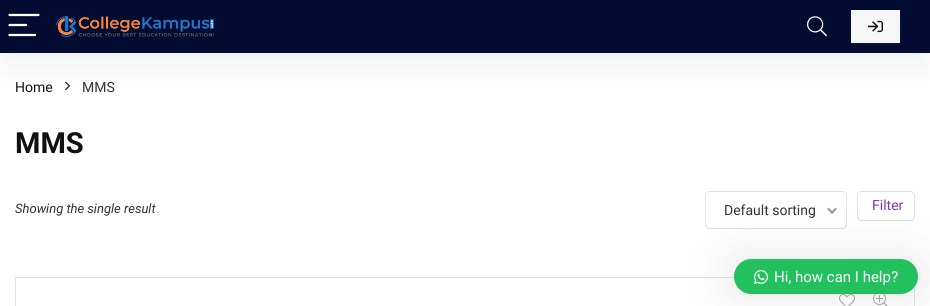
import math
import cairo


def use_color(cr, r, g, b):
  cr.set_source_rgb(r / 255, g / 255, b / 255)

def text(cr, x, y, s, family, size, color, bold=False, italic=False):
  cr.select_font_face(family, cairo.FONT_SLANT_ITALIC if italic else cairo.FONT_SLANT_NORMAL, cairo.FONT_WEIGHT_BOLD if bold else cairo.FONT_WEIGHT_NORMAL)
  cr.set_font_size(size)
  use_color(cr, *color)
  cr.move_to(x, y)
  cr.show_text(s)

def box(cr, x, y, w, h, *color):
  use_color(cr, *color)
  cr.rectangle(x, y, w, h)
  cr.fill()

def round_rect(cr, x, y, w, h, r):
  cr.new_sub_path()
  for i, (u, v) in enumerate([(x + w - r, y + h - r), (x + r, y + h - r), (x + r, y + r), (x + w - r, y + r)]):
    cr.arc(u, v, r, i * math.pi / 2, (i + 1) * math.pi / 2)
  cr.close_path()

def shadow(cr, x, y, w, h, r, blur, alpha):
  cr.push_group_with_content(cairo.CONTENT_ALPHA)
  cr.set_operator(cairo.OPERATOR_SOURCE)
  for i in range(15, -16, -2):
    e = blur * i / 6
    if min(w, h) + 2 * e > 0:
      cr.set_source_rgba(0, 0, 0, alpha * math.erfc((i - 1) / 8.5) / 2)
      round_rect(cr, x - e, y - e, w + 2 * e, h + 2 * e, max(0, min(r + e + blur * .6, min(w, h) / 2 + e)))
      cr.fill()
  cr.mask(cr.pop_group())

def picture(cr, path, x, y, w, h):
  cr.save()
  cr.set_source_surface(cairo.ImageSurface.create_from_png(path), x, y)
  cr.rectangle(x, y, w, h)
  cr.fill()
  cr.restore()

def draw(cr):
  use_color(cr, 255, 255, 255)
  cr.paint()
  box(cr, 0, 0, 930, 53, 2, 12, 49)
  picture(cr, "img_04.png", 65, 81, 6, 10)
  cr.save()
  cr.rectangle(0, 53, 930, 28)
  cr.clip()
  use_color(cr, 119, 123, 146)
  shadow(cr, 0, 15, 930, 53, 0, 15, 0.1)
  cr.restore()
  cr.new_path()
  cr.move_to(9.5, 15)
  cr.line_to(38.5, 15)
  cr.move_to(9.5, 25)
  cr.line_to(26, 25)
  cr.move_to(9.5, 35)
  cr.line_to(35, 35)
  use_color(cr, 255, 255, 255)
  cr.set_line_width(2.2)
  cr.set_line_cap(cairo.LINE_CAP_ROUND)
  cr.stroke()
  picture(cr, "img_01.png", 56, 16, 158, 21)
  picture(cr, "img_02.png", 807, 16, 20, 21)
  use_color(cr, 60, 64, 67)
  shadow(cr, 851, 11, 49, 33, 0, 1, 0.3)
  box(cr, 851, 10, 49, 33, 246, 246, 246)
  picture(cr, "img_03.png", 868, 20, 15, 13)
  round_rect(cr, 705.5, 191.5, 141, 37, 4.5)
  use_color(cr, 225, 225, 225)
  cr.set_line_width(1)
  cr.set_line_cap(cairo.LINE_CAP_BUTT)
  cr.stroke()
  use_color(cr, 153, 153, 153)
  cr.new_path()
  cr.move_to(835.5, 207.5)
  cr.line_to(837, 209)
  cr.line_to(832, 214)
  cr.line_to(830.5, 212.5)
  cr.close_path()
  cr.fill()
  cr.new_path()
  cr.move_to(828.5, 207.5)
  cr.line_to(833.5, 212.5)
  cr.line_to(832, 214)
  cr.line_to(827, 209)
  cr.close_path()
  cr.fill()
  round_rect(cr, 857.5, 191.5, 57, 29, 4.5)
  use_color(cr, 220, 224, 224)
  cr.stroke()
  cr.rectangle(15.5, 277.5, 899, 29)
  use_color(cr, 227, 227, 227)
  cr.stroke()
  picture(cr, "img_05.png", 839, 294, 16, 12)
  picture(cr, "img_06.png", 873, 294, 15, 12)
  use_color(cr, 0, 0, 0)
  shadow(cr, 734, 259, 184, 35, 17.5, 25, 0.1)
  use_color(cr, 34, 193, 94)
  round_rect(cr, 734, 259, 184, 35, 17.5)
  cr.fill()
  picture(cr, "img_07.png", 754, 270, 14, 14)
  text(cr, 15, 92, "Home", "Roboto", 14, (17, 17, 17))
  text(cr, 82, 92, "MMS", "Roboto", 14, (51, 51, 51))
  text(cr, 15, 153, "MMS", "Roboto", 29, (17, 17, 17), bold=True)
  text(cr, 15, 213, "Showing the single result", "Roboto", 13, (51, 51, 51), italic=True)
  text(cr, 724, 215, "Default sorting", "Roboto", 14, (51, 51, 51))
  text(cr, 872, 210, "Filter", "Roboto", 14, (128, 53, 190))
  text(cr, 774, 282, "Hi, how can I help?", "Roboto", 15, (255, 255, 255))


surface = cairo.ImageSurface(cairo.FORMAT_RGB24, 930, 306)
cr = cairo.Context(surface)
options = cairo.FontOptions()
options.set_hint_metrics(cairo.HINT_METRICS_OFF)
options.set_hint_style(cairo.HINT_STYLE_NONE)
cr.set_font_options(options)
cr.set_miter_limit(4)
draw(cr)
surface.write_to_png("out.png")
